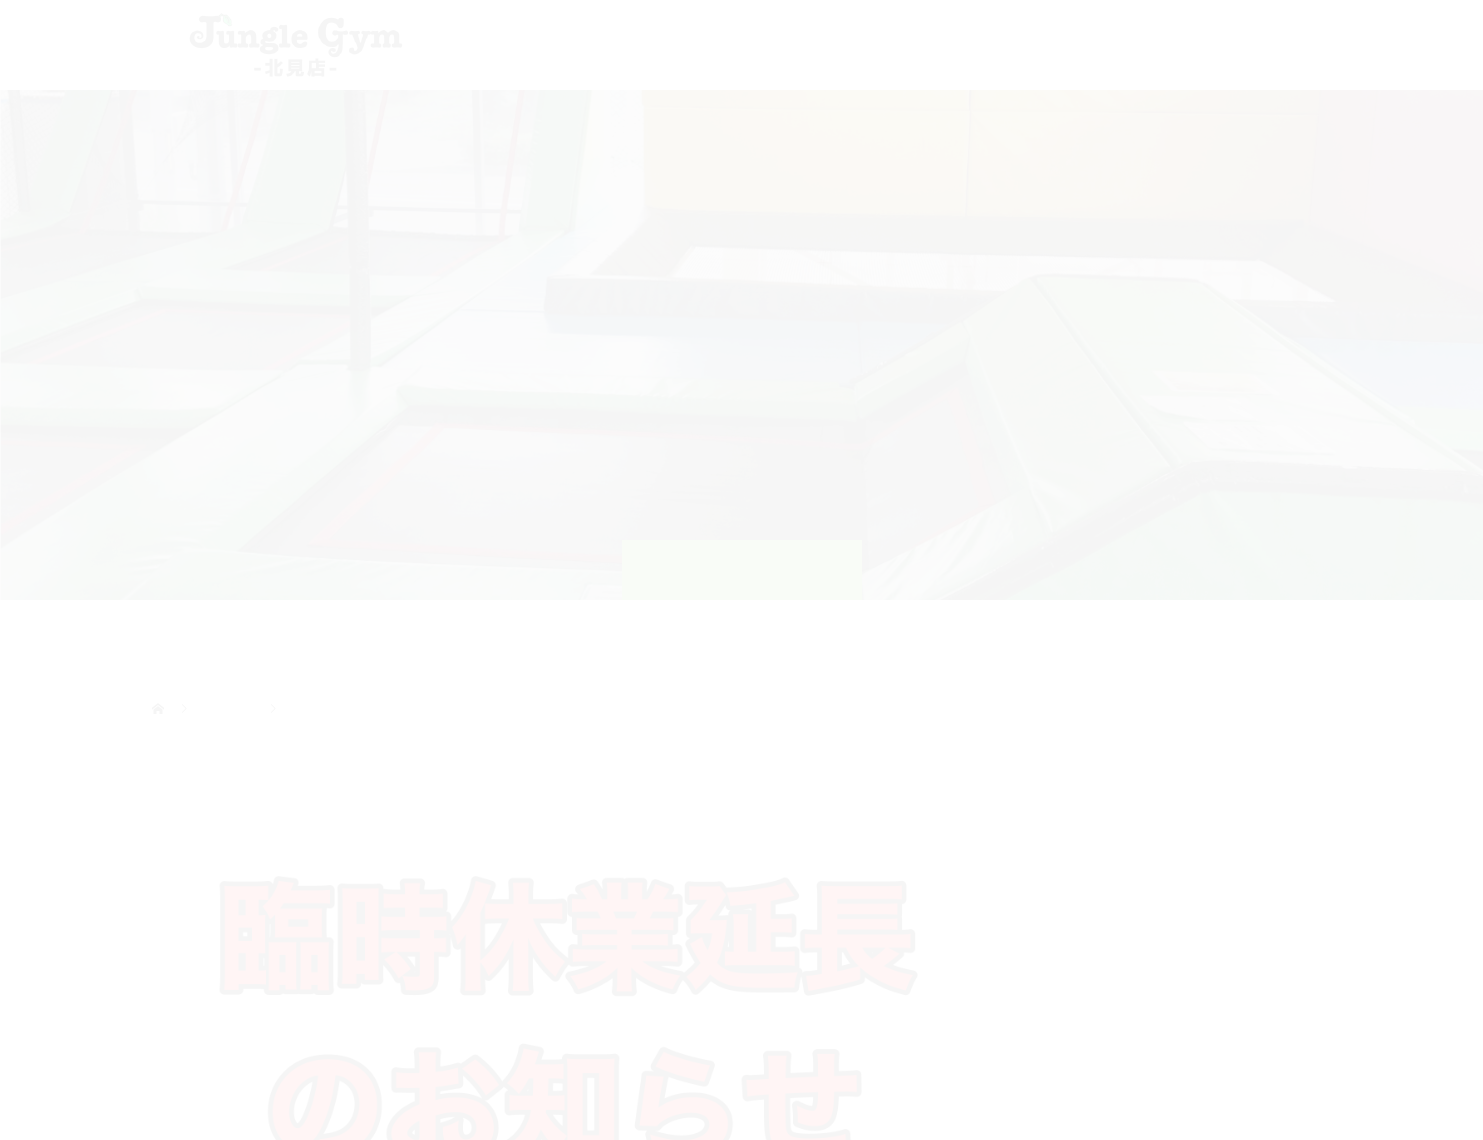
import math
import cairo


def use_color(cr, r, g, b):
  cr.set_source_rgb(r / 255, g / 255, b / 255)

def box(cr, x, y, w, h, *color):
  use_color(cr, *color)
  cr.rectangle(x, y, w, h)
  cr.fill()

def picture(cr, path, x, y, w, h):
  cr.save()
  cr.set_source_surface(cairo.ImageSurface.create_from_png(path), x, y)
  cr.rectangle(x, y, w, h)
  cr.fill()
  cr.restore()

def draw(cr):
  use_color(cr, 255, 255, 255)
  cr.paint()
  box(cr, 0, 90, 1, 510, 252, 252, 252)
  picture(cr, "img_01.png", 189, 12, 214, 65)
  picture(cr, "img_02.png", 0, 90, 1483, 510)
  box(cr, 622, 540, 240, 60, 249, 252, 247)
  picture(cr, "img_03.png", 152, 703, 12, 11)
  picture(cr, "img_04.png", 182, 704, 5, 9)
  picture(cr, "img_04.png", 271, 704, 5, 9)
  picture(cr, "img_05.png", 202, 806, 729, 334)


surface = cairo.ImageSurface(cairo.FORMAT_RGB24, 1483, 1140)
cr = cairo.Context(surface)
options = cairo.FontOptions()
options.set_hint_metrics(cairo.HINT_METRICS_OFF)
options.set_hint_style(cairo.HINT_STYLE_NONE)
cr.set_font_options(options)
cr.set_miter_limit(4)
draw(cr)
surface.write_to_png("out.png")
